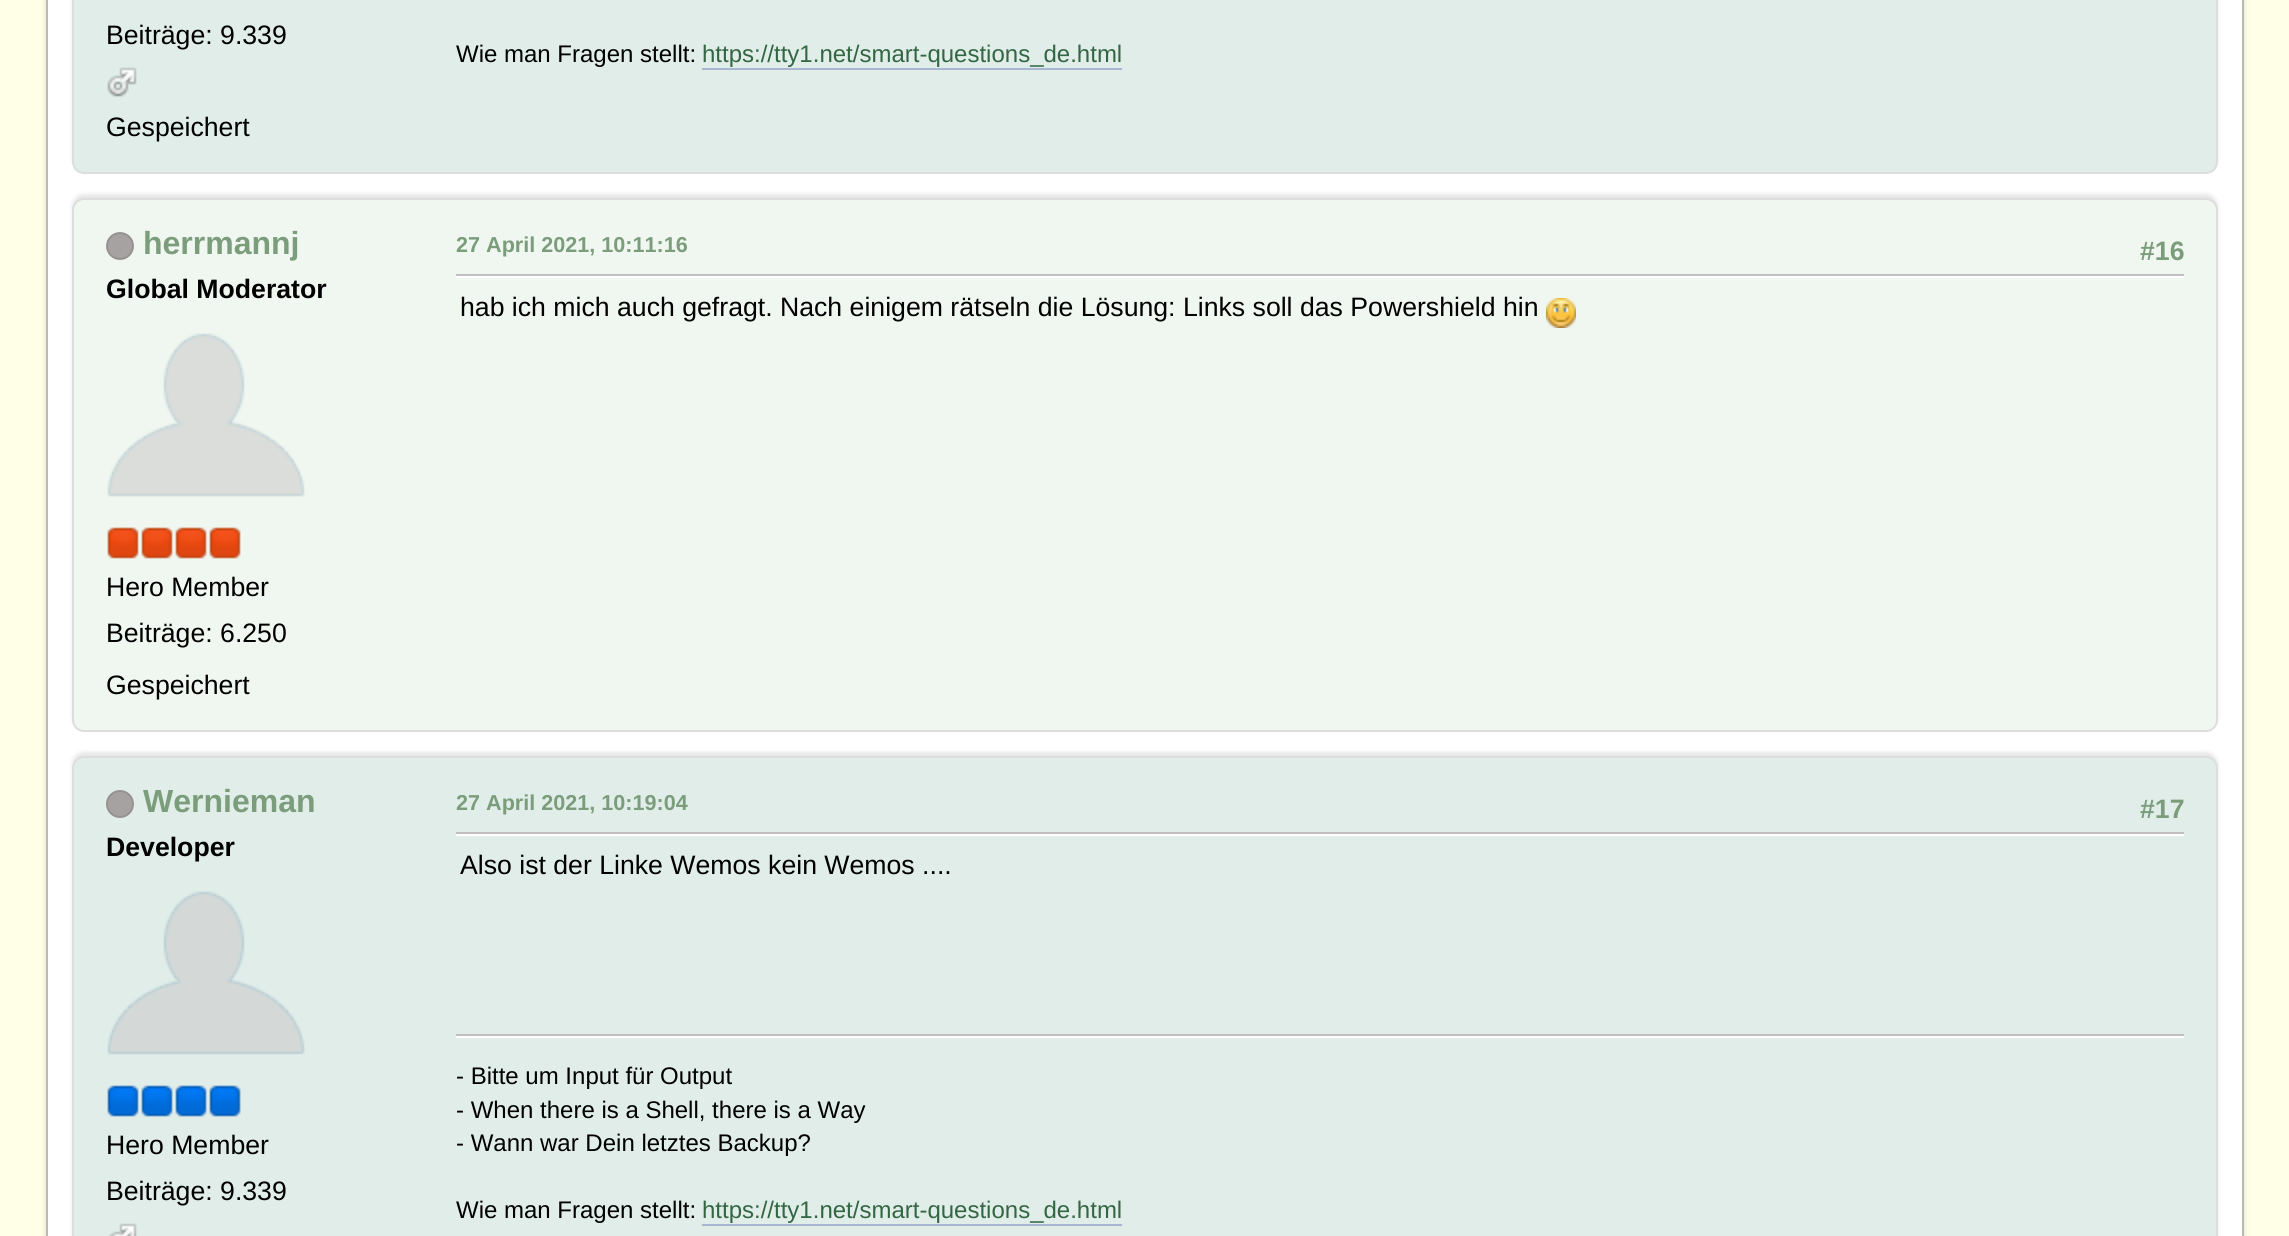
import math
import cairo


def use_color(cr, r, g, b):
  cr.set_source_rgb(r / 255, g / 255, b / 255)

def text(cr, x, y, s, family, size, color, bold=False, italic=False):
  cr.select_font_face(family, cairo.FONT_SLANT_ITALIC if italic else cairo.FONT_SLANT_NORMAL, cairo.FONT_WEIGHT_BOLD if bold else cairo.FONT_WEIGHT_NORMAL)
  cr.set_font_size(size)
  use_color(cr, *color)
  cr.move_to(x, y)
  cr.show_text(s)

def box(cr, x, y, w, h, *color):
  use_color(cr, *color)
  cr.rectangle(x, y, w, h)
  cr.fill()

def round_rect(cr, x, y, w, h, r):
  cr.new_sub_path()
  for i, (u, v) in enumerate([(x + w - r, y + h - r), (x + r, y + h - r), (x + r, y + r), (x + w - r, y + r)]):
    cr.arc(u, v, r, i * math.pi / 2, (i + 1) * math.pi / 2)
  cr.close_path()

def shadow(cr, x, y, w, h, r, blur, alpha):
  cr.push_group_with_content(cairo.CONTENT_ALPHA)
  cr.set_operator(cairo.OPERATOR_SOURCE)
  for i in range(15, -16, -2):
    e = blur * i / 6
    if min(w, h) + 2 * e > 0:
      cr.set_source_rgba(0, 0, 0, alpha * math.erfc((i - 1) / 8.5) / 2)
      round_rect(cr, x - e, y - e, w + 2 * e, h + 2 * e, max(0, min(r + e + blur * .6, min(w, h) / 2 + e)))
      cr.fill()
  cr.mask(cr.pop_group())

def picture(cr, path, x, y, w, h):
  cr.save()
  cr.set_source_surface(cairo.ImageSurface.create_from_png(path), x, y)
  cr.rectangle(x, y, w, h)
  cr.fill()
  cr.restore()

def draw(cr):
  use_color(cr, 255, 255, 231)
  cr.paint()
  use_color(cr, 0, 0, 0)
  shadow(cr, 46, -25, 2198, 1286, 16, 3, 0.14)
  use_color(cr, 255, 255, 255)
  cr.rectangle(47, -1, 2196, 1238)
  cr.fill_preserve()
  use_color(cr, 184, 184, 184)
  cr.stroke()
  use_color(cr, 0, 0, 0)
  shadow(cr, 72, -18, 2146, 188, 12, 2, 0.1)
  use_color(cr, 224, 237, 233)
  round_rect(cr, 73, -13, 2144, 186, 11)
  cr.fill_preserve()
  use_color(cr, 221, 221, 221)
  cr.stroke()
  picture(cr, "img_01.png", 107, 67, 30, 30)
  box(cr, 702, 68, 420, 2, 168, 182, 207)
  use_color(cr, 0, 0, 0)
  shadow(cr, 72, 194, 2146, 534, 12, 2, 0.1)
  use_color(cr, 240, 247, 240)
  round_rect(cr, 73, 199, 2144, 532, 11)
  cr.fill_preserve()
  use_color(cr, 221, 221, 221)
  cr.stroke()
  use_color(cr, 167, 162, 162)
  cr.arc(120, 246, 13, 0, 2 * math.pi)
  cr.fill_preserve()
  use_color(cr, 150, 146, 146)
  cr.stroke()
  picture(cr, "img_02.png", 107, 333, 198, 164)
  picture(cr, "img_03.png", 107, 527, 32, 32)
  picture(cr, "img_03.png", 141, 527, 32, 32)
  picture(cr, "img_03.png", 175, 527, 32, 32)
  picture(cr, "img_03.png", 209, 527, 32, 32)
  box(cr, 456, 276, 1728, 2, 255, 255, 255)
  box(cr, 456, 274, 1728, 2, 191, 191, 191)
  picture(cr, "img_04.png", 1546, 298, 30, 30)
  use_color(cr, 0, 0, 0)
  shadow(cr, 72, 752, 2146, 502, 12, 2, 0.1)
  use_color(cr, 224, 237, 233)
  round_rect(cr, 73, 757, 2144, 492, 11)
  cr.fill_preserve()
  use_color(cr, 221, 221, 221)
  cr.stroke()
  use_color(cr, 167, 162, 162)
  cr.arc(120, 804, 13, 0, 2 * math.pi)
  cr.fill_preserve()
  use_color(cr, 150, 146, 146)
  cr.stroke()
  picture(cr, "img_05.png", 107, 891, 198, 164)
  picture(cr, "img_06.png", 107, 1085, 32, 32)
  picture(cr, "img_06.png", 141, 1085, 32, 32)
  picture(cr, "img_06.png", 175, 1085, 32, 32)
  picture(cr, "img_06.png", 209, 1085, 32, 32)
  picture(cr, "img_07.png", 109, 1223, 28, 13)
  box(cr, 456, 834, 1728, 2, 255, 255, 255)
  box(cr, 456, 832, 1728, 2, 191, 191, 191)
  box(cr, 456, 1036, 1728, 2, 255, 255, 255)
  box(cr, 456, 1034, 1728, 2, 191, 191, 191)
  box(cr, 702, 1224, 420, 2, 168, 182, 207)
  text(cr, 106, 44, "Beiträge: 9.339", "Liberation Sans", 26.65, (0, 0, 0))
  text(cr, 106, 136, "Gespeichert", "Liberation Sans", 26.65, (0, 0, 0))
  text(cr, 456, 62, "Wie man Fragen stellt:", "Liberation Sans", 24, (0, 0, 0))
  text(cr, 702, 62, "https://tty1.net/smart-questions_de.html", "Liberation Sans", 24, (51, 102, 66))
  text(cr, 143, 254, "herrmannj", "Liberation Sans", 32, (123, 157, 123), bold=True)
  text(cr, 106, 298, "Global Moderator", "Liberation Sans", 26.65, (0, 0, 0), bold=True)
  text(cr, 106, 596, "Hero Member", "Liberation Sans", 26.65, (0, 0, 0))
  text(cr, 106, 642, "Beiträge: 6.250", "Liberation Sans", 26.65, (0, 0, 0))
  text(cr, 106, 694, "Gespeichert", "Liberation Sans", 26.65, (0, 0, 0))
  text(cr, 456, 252, "27 April 2021, 10:11:16", "Liberation Sans", 21.6, (123, 157, 123), bold=True)
  text(cr, 2140, 260, "#16", "Liberation Sans", 26.65, (123, 157, 123), bold=True)
  text(cr, 460, 316, "hab ich mich auch gefragt. Nach einigem rätseln die Lösung: Links soll das Powershield hin", "Liberation Sans", 26.65, (0, 0, 0))
  text(cr, 143, 812, "Wernieman", "Liberation Sans", 32, (123, 157, 123), bold=True)
  text(cr, 106, 856, "Developer", "Liberation Sans", 26.65, (0, 0, 0), bold=True)
  text(cr, 106, 1154, "Hero Member", "Liberation Sans", 26.65, (0, 0, 0))
  text(cr, 106, 1200, "Beiträge: 9.339", "Liberation Sans", 26.65, (0, 0, 0))
  text(cr, 456, 810, "27 April 2021, 10:19:04", "Liberation Sans", 21.6, (123, 157, 123), bold=True)
  text(cr, 2140, 818, "#17", "Liberation Sans", 26.65, (123, 157, 123), bold=True)
  text(cr, 460, 874, "Also ist der Linke Wemos kein Wemos ....", "Liberation Sans", 26.65, (0, 0, 0))
  text(cr, 456, 1084, "- Bitte um Input für Output", "Liberation Sans", 24, (0, 0, 0))
  text(cr, 456, 1118, "- When there is a Shell, there is a Way", "Liberation Sans", 24, (0, 0, 0))
  text(cr, 456, 1151, "- Wann war Dein letztes Backup?", "Liberation Sans", 24, (0, 0, 0))
  text(cr, 456, 1218, "Wie man Fragen stellt:", "Liberation Sans", 24, (0, 0, 0))
  text(cr, 702, 1218, "https://tty1.net/smart-questions_de.html", "Liberation Sans", 24, (51, 102, 66))


surface = cairo.ImageSurface(cairo.FORMAT_RGB24, 2289, 1236)
cr = cairo.Context(surface)
options = cairo.FontOptions()
options.set_hint_metrics(cairo.HINT_METRICS_OFF)
options.set_hint_style(cairo.HINT_STYLE_NONE)
cr.set_font_options(options)
cr.set_miter_limit(4)
draw(cr)
surface.write_to_png("out.png")
